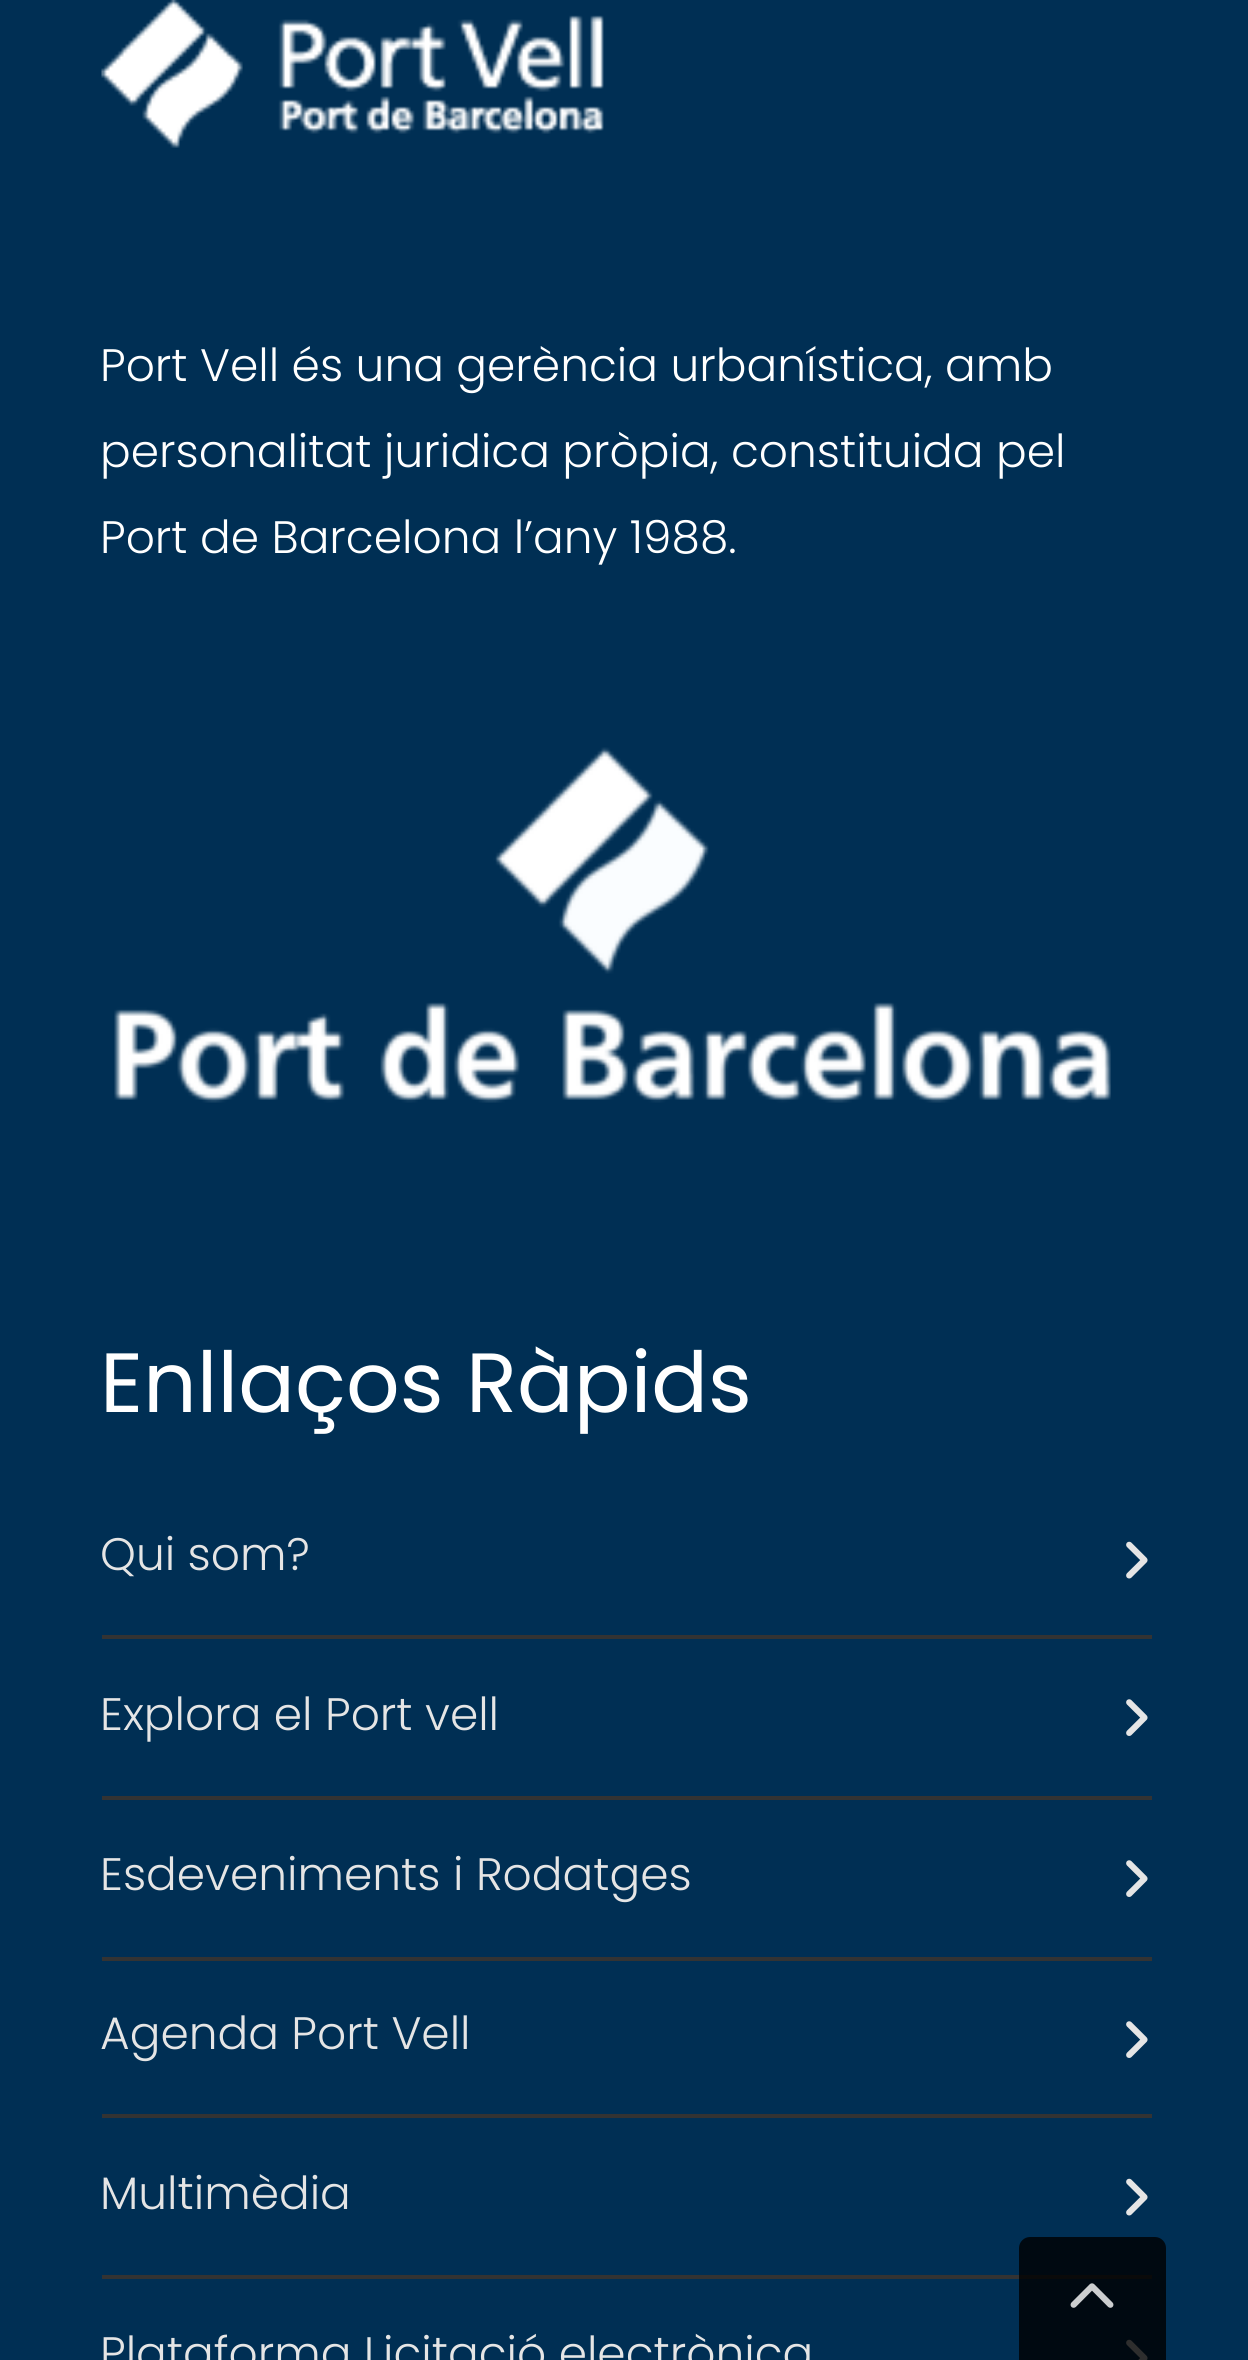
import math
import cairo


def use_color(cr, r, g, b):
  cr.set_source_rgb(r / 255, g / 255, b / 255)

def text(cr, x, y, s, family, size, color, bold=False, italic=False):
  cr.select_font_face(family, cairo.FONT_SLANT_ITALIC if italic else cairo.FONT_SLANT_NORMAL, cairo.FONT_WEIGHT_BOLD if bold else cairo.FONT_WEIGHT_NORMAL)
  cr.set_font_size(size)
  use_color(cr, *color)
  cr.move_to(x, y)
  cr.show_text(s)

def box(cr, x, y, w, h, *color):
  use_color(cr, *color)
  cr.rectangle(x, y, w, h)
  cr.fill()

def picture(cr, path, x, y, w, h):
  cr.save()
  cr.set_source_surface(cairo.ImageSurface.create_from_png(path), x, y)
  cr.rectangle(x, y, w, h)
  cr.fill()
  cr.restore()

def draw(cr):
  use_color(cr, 0, 47, 84)
  cr.paint()
  picture(cr, "img_01.png", 101, 0, 503, 148)
  picture(cr, "img_02.png", 114, 747, 997, 356)
  box(cr, 102, 1635, 1050, 4, 51, 51, 51)
  picture(cr, "img_03.png", 1126, 1541, 22, 38)
  box(cr, 102, 1796, 1050, 4, 51, 51, 51)
  picture(cr, "img_04.png", 1126, 1699, 22, 37)
  box(cr, 102, 1957, 1050, 4, 51, 51, 51)
  picture(cr, "img_04.png", 1126, 1860, 22, 37)
  box(cr, 102, 2114, 1050, 4, 51, 51, 51)
  picture(cr, "img_04.png", 1126, 2021, 22, 37)
  box(cr, 102, 2275, 1050, 4, 51, 51, 51)
  picture(cr, "img_03.png", 1126, 2178, 22, 38)
  picture(cr, "img_05.png", 1126, 2339, 22, 21)
  cr.set_source_rgba(0, 0, 0, 0.8)
  cr.new_path()
  cr.move_to(1030, 2237)
  cr.line_to(1155, 2237)
  cr.curve_to(1161, 2237, 1166, 2242, 1166, 2248)
  cr.line_to(1166, 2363)
  cr.line_to(1019, 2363)
  cr.line_to(1019, 2248)
  cr.curve_to(1019, 2242, 1024, 2237, 1030, 2237)
  cr.close_path()
  cr.fill()
  picture(cr, "img_06.png", 1070, 2283, 44, 25)
  text(cr, 100, 381, "Port Vell és una gerència urbanística, amb", "Poppins Light", 45.5, (255, 255, 255))
  text(cr, 100, 467, "personalitat juridica pròpia, constituida pel", "Poppins Light", 45.5, (255, 255, 255))
  text(cr, 100, 553, "Port de Barcelona l’any 1988.", "Poppins Light", 45.5, (255, 255, 255))
  text(cr, 100, 1412, "Enllaços Ràpids", "Poppins", 84, (255, 255, 255))
  text(cr, 100, 1570, "Qui som?", "Poppins Light", 45.5, (229, 229, 229))
  text(cr, 100, 1730, "Explora el Port vell", "Poppins Light", 45.5, (229, 229, 229))
  text(cr, 100, 1890, "Esdeveniments i Rodatges", "Poppins Light", 45.5, (229, 229, 229))
  text(cr, 100, 2049, "Agenda Port Vell", "Poppins Light", 45.5, (229, 229, 229))
  text(cr, 100, 2209, "Multimèdia", "Poppins Light", 45.5, (229, 229, 229))
  text(cr, 100, 2369, "Plataforma Licitació electrònica", "Poppins Light", 45.5, (229, 229, 229))


surface = cairo.ImageSurface(cairo.FORMAT_RGB24, 1248, 2360)
cr = cairo.Context(surface)
options = cairo.FontOptions()
options.set_hint_metrics(cairo.HINT_METRICS_OFF)
options.set_hint_style(cairo.HINT_STYLE_NONE)
cr.set_font_options(options)
cr.set_miter_limit(4)
draw(cr)
surface.write_to_png("out.png")
